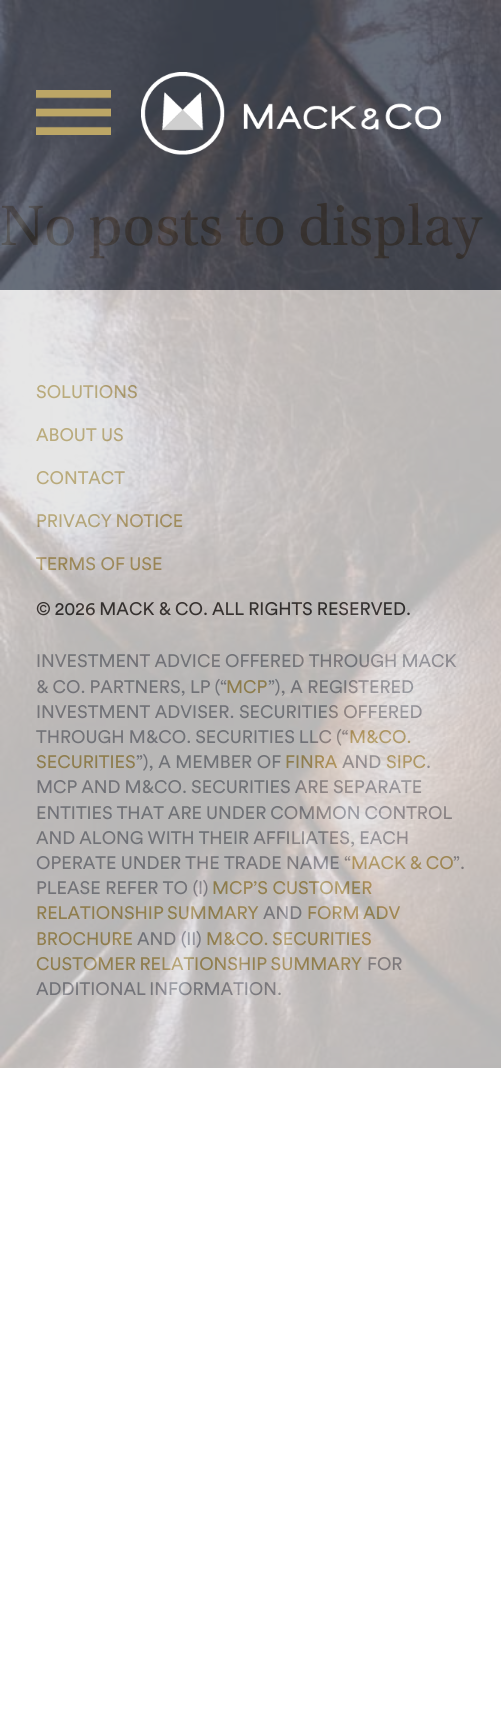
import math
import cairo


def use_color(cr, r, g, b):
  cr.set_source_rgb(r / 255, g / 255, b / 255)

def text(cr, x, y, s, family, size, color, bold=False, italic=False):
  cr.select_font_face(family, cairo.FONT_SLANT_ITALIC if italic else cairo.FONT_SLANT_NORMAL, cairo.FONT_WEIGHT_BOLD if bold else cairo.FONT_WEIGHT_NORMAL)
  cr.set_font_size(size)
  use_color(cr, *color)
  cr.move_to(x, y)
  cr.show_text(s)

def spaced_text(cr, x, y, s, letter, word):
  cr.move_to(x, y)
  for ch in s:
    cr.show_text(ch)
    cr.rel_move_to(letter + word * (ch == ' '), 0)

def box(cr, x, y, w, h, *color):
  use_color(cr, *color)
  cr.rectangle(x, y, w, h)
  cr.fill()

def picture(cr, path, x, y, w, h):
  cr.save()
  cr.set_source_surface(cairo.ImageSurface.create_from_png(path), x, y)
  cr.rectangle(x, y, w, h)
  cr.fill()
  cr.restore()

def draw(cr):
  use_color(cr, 255, 255, 255)
  cr.paint()
  box(cr, 0, 0, 501, 290, 66, 75, 89)
  box(cr, 0, 290, 501, 778, 224, 224, 224)
  cr.select_font_face("Utopia")
  cr.set_font_size(60)
  use_color(cr, 51, 51, 51)
  spaced_text(cr, 0, 245, "No posts to display", 0, -0.5)
  text(cr, 36, 398, "SOLUTIONS", "Circular", 18, (169, 150, 91))
  text(cr, 36, 441, "ABOUT US", "Circular", 18, (169, 150, 91))
  text(cr, 36, 484, "CONTACT", "Circular", 18, (169, 150, 91))
  spaced_text(cr, 36, 527, "PRIVACY NOTICE", 0, -1)
  text(cr, 36, 570, "TERMS OF USE", "Circular", 18, (169, 150, 91))
  use_color(cr, 51, 51, 51)
  spaced_text(cr, 36, 615, "© 2026 MACK & CO. ALL RIGHTS RESERVED.", 0, -0.5)
  use_color(cr, 132, 136, 144)
  spaced_text(cr, 36, 667, "INVESTMENT ADVICE OFFERED THROUGH MACK", 0, -0.25)
  spaced_text(cr, 36, 693, "& CO. PARTNERS, LP (“", 0, -0.5)
  text(cr, 226, 693, "MCP", "Circular", 18, (169, 150, 91))
  text(cr, 268, 693, "”), A REGISTERED", "Circular", 18, (132, 136, 144))
  text(cr, 36, 718, "INVESTMENT ADVISER. SECURITIES OFFERED", "Circular", 18, (132, 136, 144))
  spaced_text(cr, 36, 743, "THROUGH M&CO. SECURITIES LLC (“", 0, -0.5)
  text(cr, 349, 743, "M&CO.", "Circular", 18, (169, 150, 91))
  text(cr, 36, 768, "SECURITIES", "Circular", 18, (169, 150, 91))
  text(cr, 136, 768, "”), A MEMBER OF", "Circular", 18, (132, 136, 144))
  text(cr, 285, 768, "FINRA", "Circular", 18, (169, 150, 91))
  text(cr, 342, 768, "AND", "Circular", 18, (132, 136, 144))
  text(cr, 386, 768, "SIPC", "Circular", 18, (169, 150, 91))
  text(cr, 426, 768, ".", "Circular", 18, (132, 136, 144))
  spaced_text(cr, 36, 793, "MCP AND M&CO. SECURITIES ARE SEPARATE", 0, -0.5)
  spaced_text(cr, 36, 819, "ENTITIES THAT ARE UNDER COMMON CONTROL", 0, -0.5)
  spaced_text(cr, 36, 844, "AND ALONG WITH THEIR AFFILIATES, EACH", 0, -0.5)
  spaced_text(cr, 36, 869, "OPERATE UNDER THE TRADE NAME “", 0, -0.25)
  use_color(cr, 169, 150, 91)
  spaced_text(cr, 351, 869, "MACK & CO", 0, -1)
  text(cr, 453, 869, "”.", "Circular", 18, (132, 136, 144))
  text(cr, 36, 894, "PLEASE REFER TO (I)", "Circular", 18, (132, 136, 144))
  text(cr, 212, 894, "MCP’S CUSTOMER", "Circular", 18, (169, 150, 91))
  spaced_text(cr, 36, 919, "RELATIONSHIP SUMMARY", 0, -1)
  text(cr, 263, 919, "AND", "Circular", 18, (132, 136, 144))
  use_color(cr, 169, 150, 91)
  spaced_text(cr, 307, 919, "FORM ADV", 0, -1)
  text(cr, 36, 945, "BROCHURE", "Circular", 18, (169, 150, 91))
  text(cr, 137, 945, "AND (II)", "Circular", 18, (132, 136, 144))
  use_color(cr, 169, 150, 91)
  spaced_text(cr, 206, 945, "M&CO. SECURITIES", 0, -1)
  spaced_text(cr, 36, 970, "CUSTOMER RELATIONSHIP SUMMARY", 0, -1)
  text(cr, 367, 970, "FOR", "Circular", 18, (132, 136, 144))
  spaced_text(cr, 36, 995, "ADDITIONAL INFORMATION.", 0, -1)
  picture(cr, "img_01.png", 0, 0, 501, 1068)
  picture(cr, "img_02.png", 36, 90, 75, 45)
  picture(cr, "img_03.png", 141, 72, 300, 83)


surface = cairo.ImageSurface(cairo.FORMAT_RGB24, 501, 1711)
cr = cairo.Context(surface)
options = cairo.FontOptions()
options.set_hint_metrics(cairo.HINT_METRICS_OFF)
options.set_hint_style(cairo.HINT_STYLE_NONE)
cr.set_font_options(options)
cr.set_miter_limit(4)
draw(cr)
surface.write_to_png("out.png")
